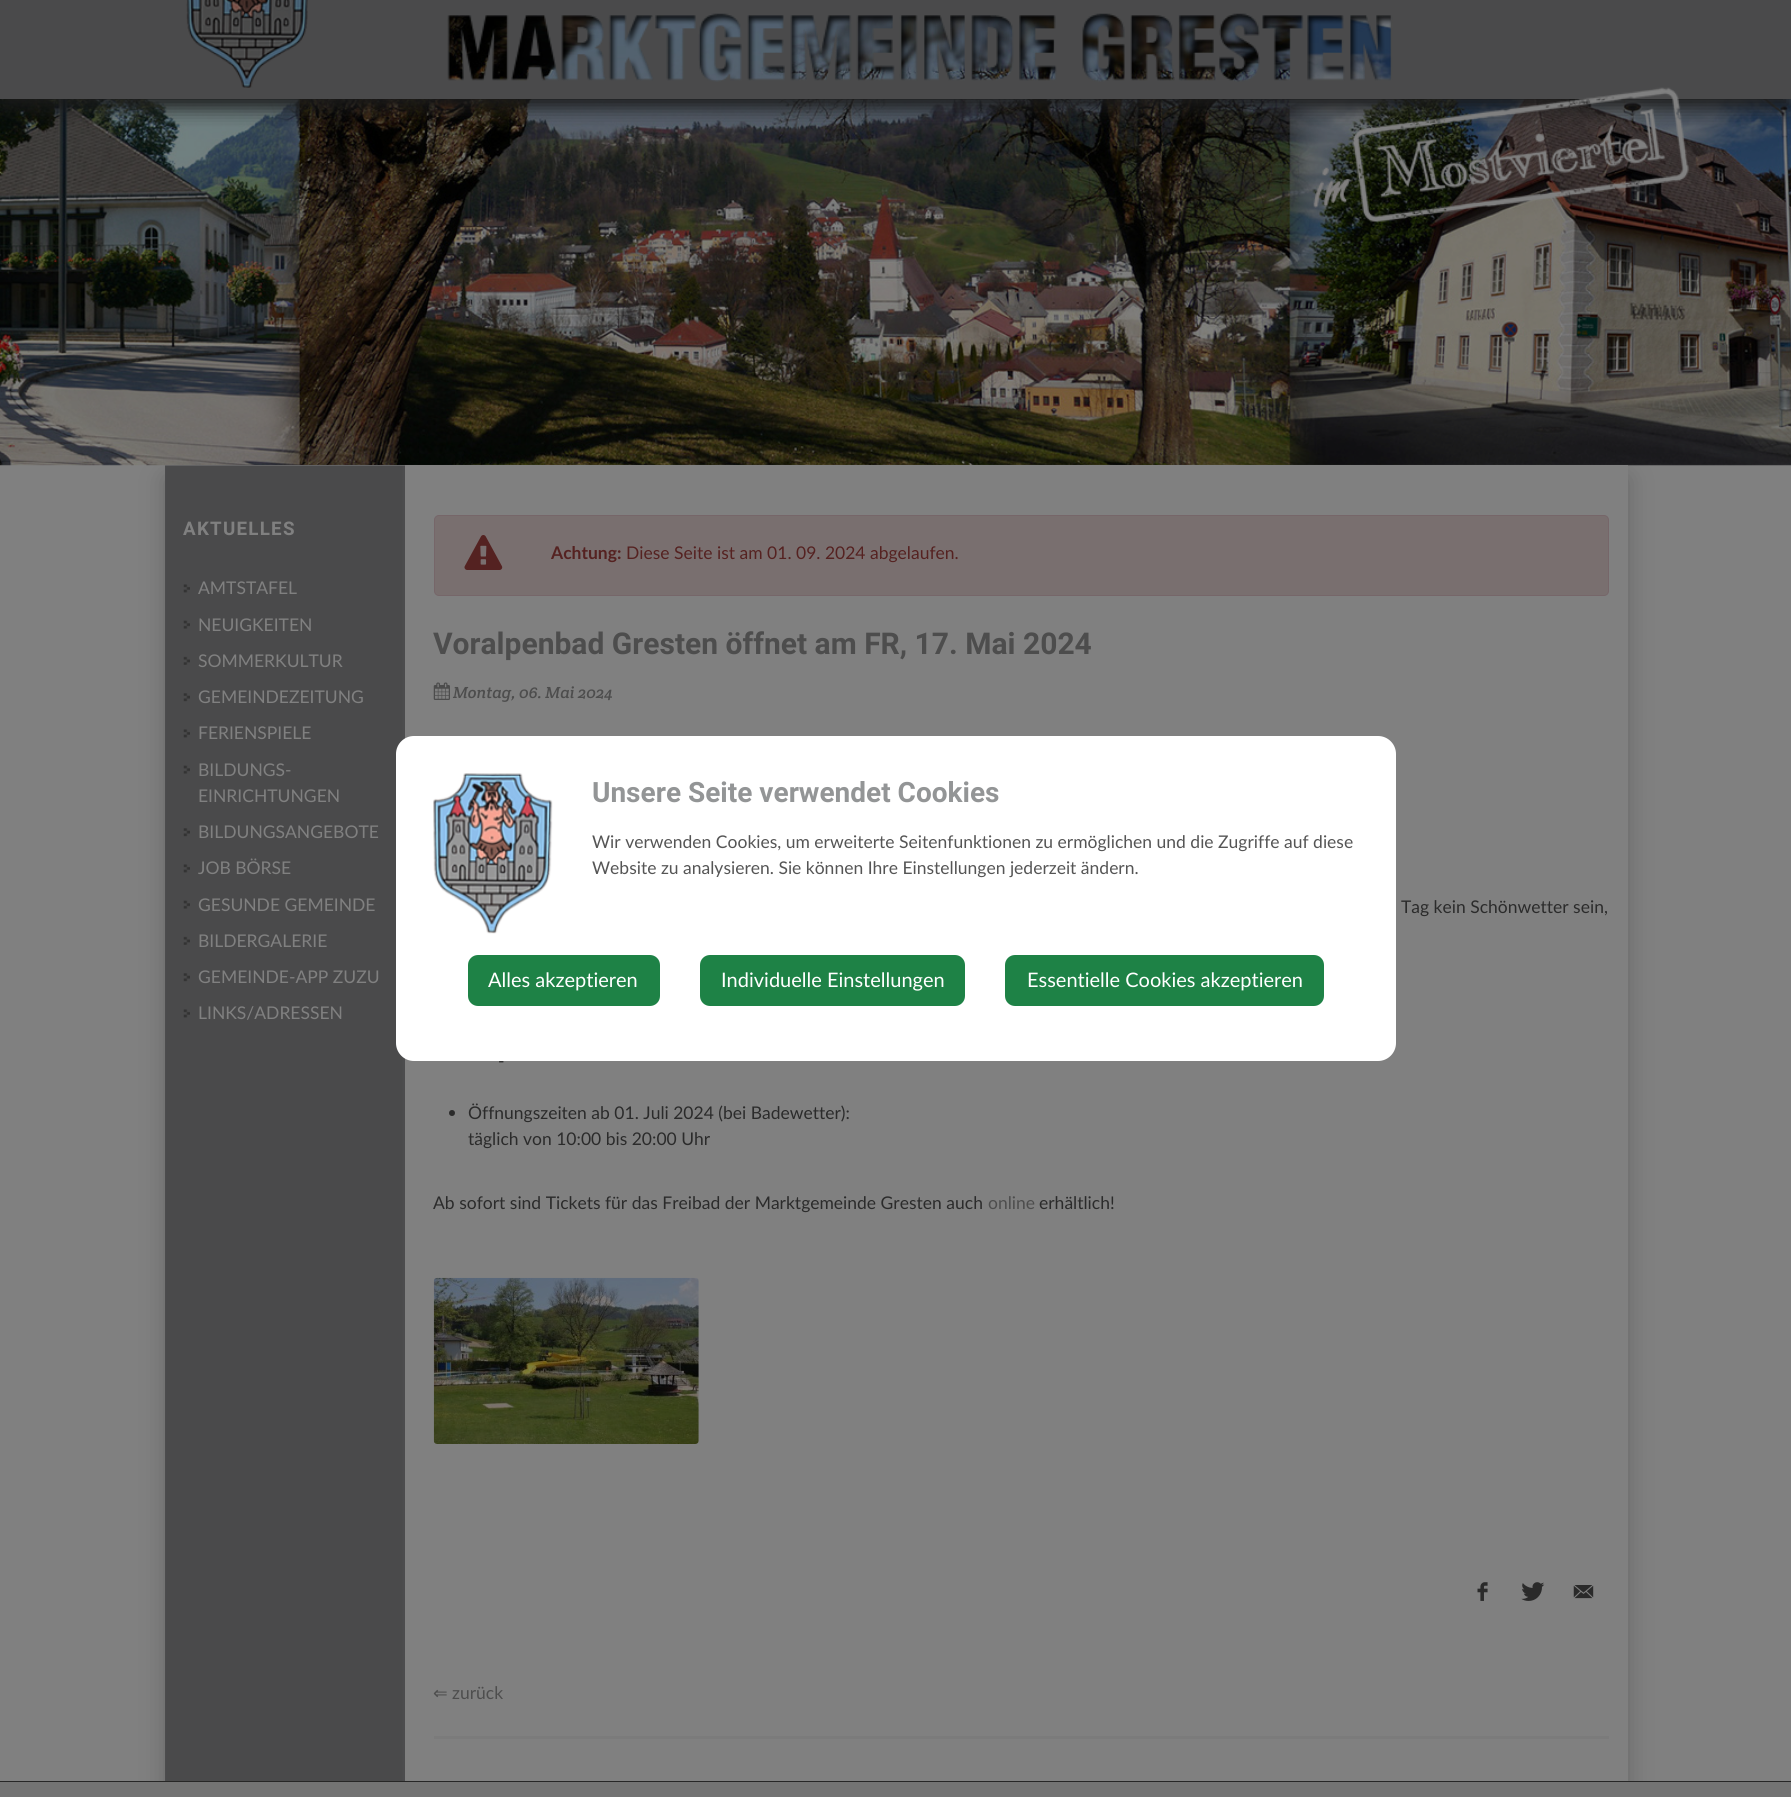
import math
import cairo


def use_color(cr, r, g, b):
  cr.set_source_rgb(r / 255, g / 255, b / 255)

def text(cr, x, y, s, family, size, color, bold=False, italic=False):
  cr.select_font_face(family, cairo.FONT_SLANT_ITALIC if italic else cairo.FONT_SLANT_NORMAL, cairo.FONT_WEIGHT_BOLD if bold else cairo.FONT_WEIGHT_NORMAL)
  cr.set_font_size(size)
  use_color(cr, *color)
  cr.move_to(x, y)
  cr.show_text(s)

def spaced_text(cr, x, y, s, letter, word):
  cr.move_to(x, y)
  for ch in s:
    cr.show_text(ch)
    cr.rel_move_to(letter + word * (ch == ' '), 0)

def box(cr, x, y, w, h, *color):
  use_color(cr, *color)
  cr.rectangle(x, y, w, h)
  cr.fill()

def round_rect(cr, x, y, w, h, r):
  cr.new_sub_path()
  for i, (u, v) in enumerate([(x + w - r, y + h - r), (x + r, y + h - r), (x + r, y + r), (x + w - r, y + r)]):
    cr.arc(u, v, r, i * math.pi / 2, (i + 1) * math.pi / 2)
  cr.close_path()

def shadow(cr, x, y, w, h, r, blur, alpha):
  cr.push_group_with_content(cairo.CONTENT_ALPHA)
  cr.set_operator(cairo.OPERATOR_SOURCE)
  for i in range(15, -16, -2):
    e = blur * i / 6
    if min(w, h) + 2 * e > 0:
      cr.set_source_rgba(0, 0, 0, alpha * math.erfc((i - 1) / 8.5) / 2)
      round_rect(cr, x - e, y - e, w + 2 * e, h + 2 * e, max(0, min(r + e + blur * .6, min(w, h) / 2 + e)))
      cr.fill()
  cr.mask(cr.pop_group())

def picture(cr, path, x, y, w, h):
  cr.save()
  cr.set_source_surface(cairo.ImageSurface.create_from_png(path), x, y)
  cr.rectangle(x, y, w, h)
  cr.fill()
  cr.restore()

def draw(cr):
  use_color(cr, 128, 128, 128)
  cr.paint()
  picture(cr, "img_01.png", 0, 13, 1791, 453)
  cr.save()
  cr.rectangle(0, 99, 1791, 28)
  cr.clip()
  use_color(cr, 26, 26, 26)
  shadow(cr, 0, -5, 1791, 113, 0, 9.5, 1)
  cr.restore()
  box(cr, 0, 0, 445, 99, 74, 74, 75)
  picture(cr, "img_02.png", 445, 0, 950, 99)
  box(cr, 1395, 0, 396, 99, 74, 74, 75)
  picture(cr, "img_03.png", 1313, 87, 376, 135)
  picture(cr, "img_04.png", 186, 0, 122, 88)
  cr.save()
  cr.rectangle(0, 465, 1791, 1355)
  cr.clip()
  use_color(cr, 0, 0, 0)
  shadow(cr, 165, 478, 1463, 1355, 0, 12.5, 0.2)
  cr.restore()
  box(cr, 165, 465, 1463, 1316, 128, 128, 128)
  picture(cr, "img_05.png", 165, 465, 240, 1316)
  picture(cr, "img_06.png", 183, 584, 7, 9)
  picture(cr, "img_07.png", 183, 620, 7, 9)
  picture(cr, "img_08.png", 183, 656, 7, 9)
  picture(cr, "img_09.png", 183, 693, 7, 9)
  picture(cr, "img_06.png", 183, 729, 7, 9)
  picture(cr, "img_07.png", 183, 765, 7, 9)
  picture(cr, "img_09.png", 183, 828, 7, 9)
  picture(cr, "img_06.png", 183, 864, 7, 9)
  picture(cr, "img_07.png", 183, 900, 7, 9)
  picture(cr, "img_08.png", 183, 936, 7, 9)
  picture(cr, "img_09.png", 183, 973, 7, 9)
  picture(cr, "img_06.png", 183, 1009, 7, 9)
  box(cr, 434, 1736, 1175, 3, 123, 123, 123)
  use_color(cr, 121, 111, 111)
  round_rect(cr, 434.5, 515.5, 1174, 80, 4.5)
  cr.fill_preserve()
  use_color(cr, 118, 102, 105)
  cr.set_line_width(1)
  cr.stroke()
  picture(cr, "img_10.png", 464, 535, 39, 35)
  picture(cr, "img_11.png", 433, 682, 17, 18)
  use_color(cr, 43, 43, 43)
  cr.arc(452, 1113, 3, 0, 2 * math.pi)
  cr.fill()
  picture(cr, "img_12.png", 433, 1277, 266, 167)
  picture(cr, "img_13.png", 1477, 1582, 11, 19)
  picture(cr, "img_14.png", 1521, 1582, 24, 19)
  picture(cr, "img_15.png", 1573, 1585, 21, 14)
  use_color(cr, 255, 255, 255)
  round_rect(cr, 396, 736, 1000, 325, 18)
  cr.fill()
  picture(cr, "img_16.png", 433, 773, 120, 161)
  use_color(cr, 30, 130, 70)
  round_rect(cr, 468, 955, 192, 51, 10)
  cr.fill()
  round_rect(cr, 700, 955, 265, 51, 10)
  cr.fill()
  round_rect(cr, 1005, 955, 319, 51, 10)
  cr.fill()
  box(cr, 0, 1782, 1791, 15, 115, 115, 115)
  box(cr, 0, 1781, 1791, 1, 38, 38, 38)
  cr.select_font_face("Roboto", cairo.FONT_SLANT_NORMAL, cairo.FONT_WEIGHT_BOLD)
  cr.set_font_size(18.75)
  use_color(cr, 128, 128, 128)
  spaced_text(cr, 183, 535, "AKTUELLES", 1.25, 0)
  text(cr, 198, 594, "AMTSTAFEL", "Lato", 17.5, (128, 128, 128))
  text(cr, 198, 631, "NEUIGKEITEN", "Lato", 17.5, (128, 128, 128))
  text(cr, 198, 667, "SOMMERKULTUR", "Lato", 17.5, (128, 128, 128))
  text(cr, 198, 703, "GEMEINDEZEITUNG", "Lato", 17.5, (128, 128, 128))
  text(cr, 198, 739, "FERIENSPIELE", "Lato", 17.5, (128, 128, 128))
  text(cr, 198, 776, "BILDUNGS-", "Lato", 17.5, (128, 128, 128))
  text(cr, 198, 802, "EINRICHTUNGEN", "Lato", 17.5, (128, 128, 128))
  text(cr, 198, 838, "BILDUNGSANGEBOTE", "Lato", 17.5, (128, 128, 128))
  text(cr, 198, 874, "JOB BÖRSE", "Lato", 17.5, (128, 128, 128))
  text(cr, 198, 911, "GESUNDE GEMEINDE", "Lato", 17.5, (128, 128, 128))
  text(cr, 198, 947, "BILDERGALERIE", "Lato", 17.5, (128, 128, 128))
  text(cr, 198, 983, "GEMEINDE-APP ZUZU", "Lato", 17.5, (128, 128, 128))
  text(cr, 198, 1019, "LINKS/ADRESSEN", "Lato", 17.5, (128, 128, 128))
  text(cr, 551, 559, "Achtung:", "Lato", 17.5, (85, 34, 33), bold=True)
  text(cr, 626, 559, "Diese Seite ist am 01. 09. 2024 abgelaufen.", "Lato", 17.5, (85, 34, 33))
  text(cr, 433, 654, "Voralpenbad Gresten öffnet am FR, 17. Mai 2024", "Roboto", 30, (77, 77, 77), bold=True)
  text(cr, 453, 698, "Montag, 06. Mai 2024", "Crete Round", 16.25, (77, 77, 77), italic=True)
  text(cr, 1401, 913, "Tag kein Schönwetter sein,", "Lato", 17.5, (43, 43, 43))
  text(cr, 498, 1067, "-", "Lato", 17.5, (43, 43, 43))
  text(cr, 468, 1119, "Öffnungszeiten ab 01. Juli 2024 (bei Badewetter):", "Lato", 17.5, (43, 43, 43))
  text(cr, 468, 1145, "täglich von 10:00 bis 20:00 Uhr", "Lato", 17.5, (43, 43, 43))
  text(cr, 433, 1209, "Ab sofort sind Tickets für das Freibad der Marktgemeinde Gresten auch", "Lato", 17.5, (43, 43, 43))
  text(cr, 988, 1209, "online", "Lato", 17.5, (77, 77, 77))
  text(cr, 1039, 1209, "erhältlich!", "Lato", 17.5, (43, 43, 43))
  text(cr, 433, 1699, "⇐", "DejaVu Sans", 17.5, (77, 77, 77))
  text(cr, 452, 1699, "zurück", "Lato", 17.5, (77, 77, 77))
  text(cr, 592, 802, "Unsere Seite verwendet Cookies", "Roboto", 28, (147, 149, 150), bold=True)
  text(cr, 592, 848, "Wir verwenden Cookies, um erweiterte Seitenfunktionen zu ermöglichen und die Zugriffe auf diese", "Lato", 17.5, (85, 85, 85))
  text(cr, 592, 874, "Website zu analysieren. Sie können Ihre Einstellungen jederzeit ändern.", "Lato", 17.5, (85, 85, 85))
  text(cr, 488, 987, "Alles akzeptieren", "Lato", 20, (255, 255, 255))
  text(cr, 721, 987, "Individuelle Einstellungen", "Lato", 20, (255, 255, 255))
  text(cr, 1027, 987, "Essentielle Cookies akzeptieren", "Lato", 20, (255, 255, 255))


surface = cairo.ImageSurface(cairo.FORMAT_RGB24, 1791, 1797)
cr = cairo.Context(surface)
options = cairo.FontOptions()
options.set_hint_metrics(cairo.HINT_METRICS_OFF)
options.set_hint_style(cairo.HINT_STYLE_NONE)
cr.set_font_options(options)
cr.set_miter_limit(4)
draw(cr)
surface.write_to_png("out.png")
